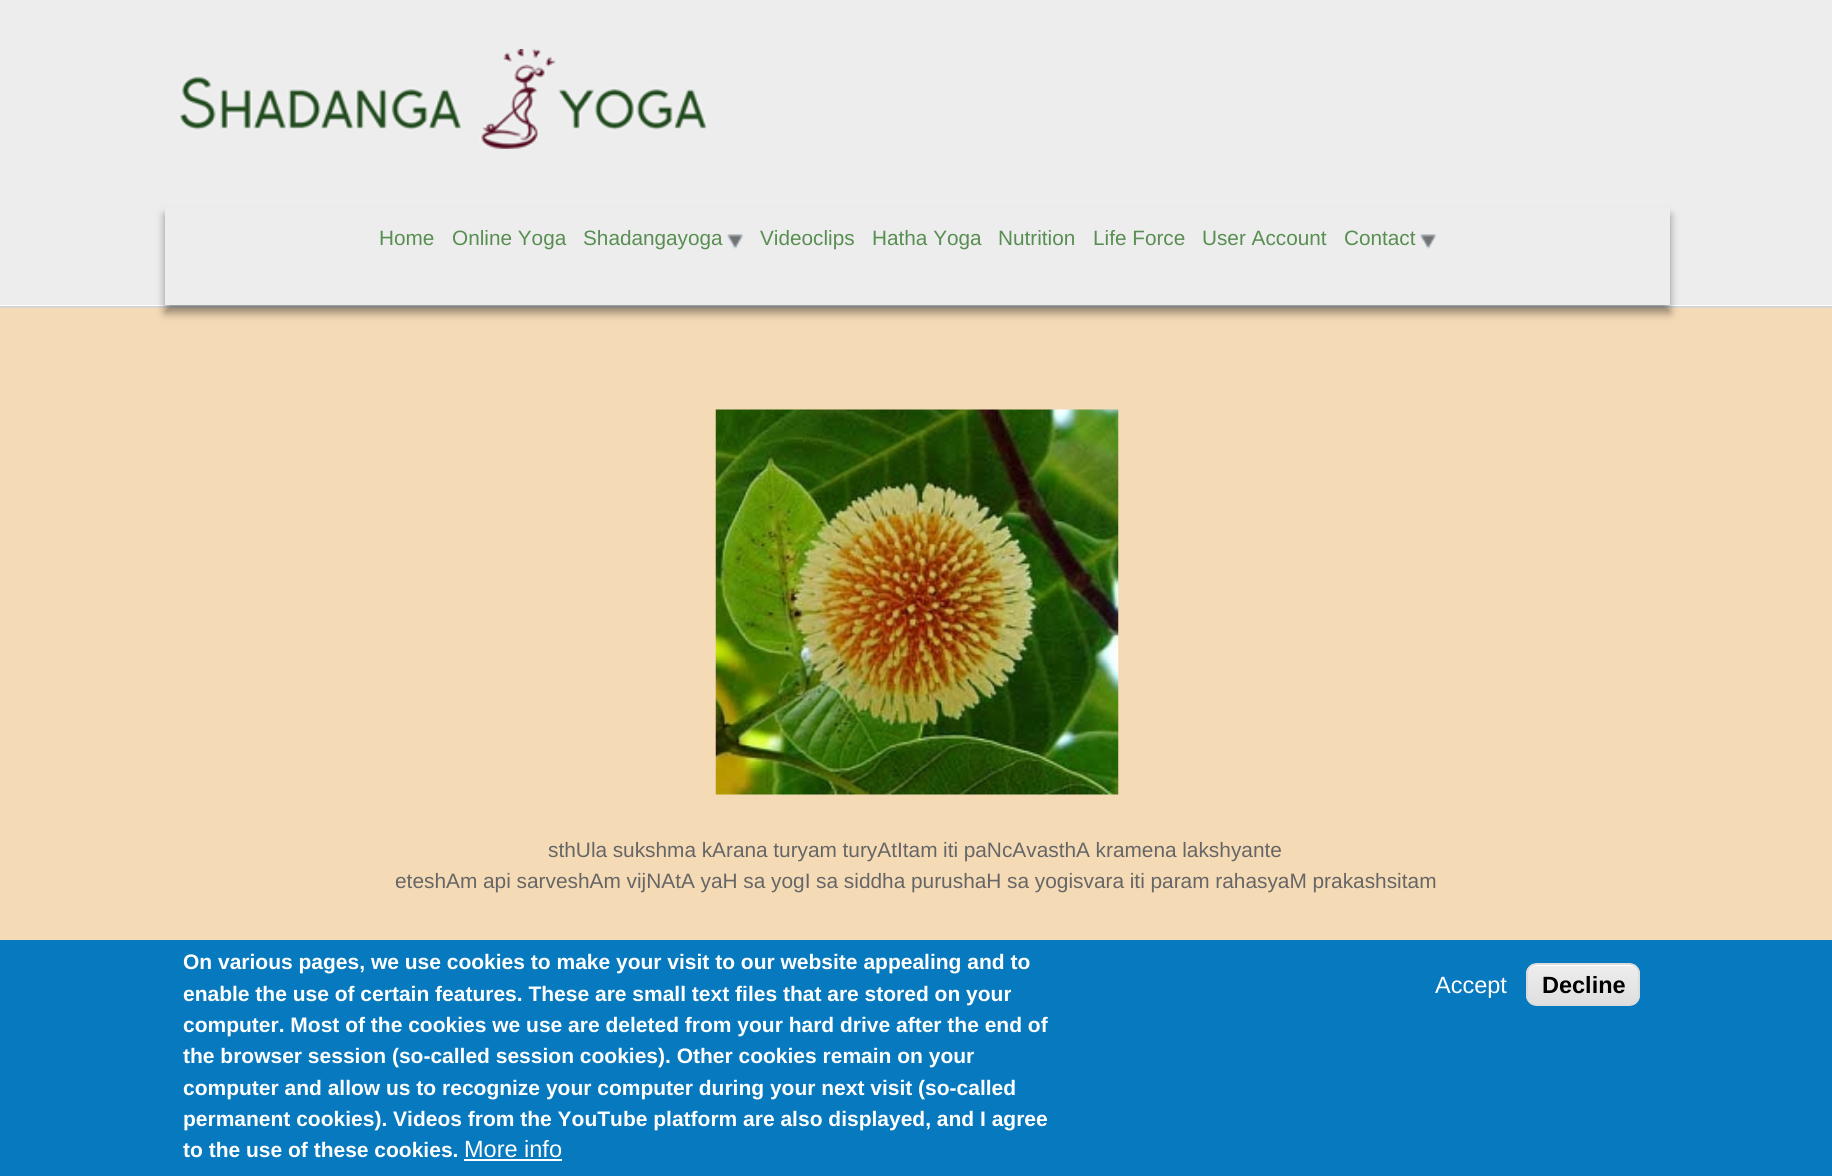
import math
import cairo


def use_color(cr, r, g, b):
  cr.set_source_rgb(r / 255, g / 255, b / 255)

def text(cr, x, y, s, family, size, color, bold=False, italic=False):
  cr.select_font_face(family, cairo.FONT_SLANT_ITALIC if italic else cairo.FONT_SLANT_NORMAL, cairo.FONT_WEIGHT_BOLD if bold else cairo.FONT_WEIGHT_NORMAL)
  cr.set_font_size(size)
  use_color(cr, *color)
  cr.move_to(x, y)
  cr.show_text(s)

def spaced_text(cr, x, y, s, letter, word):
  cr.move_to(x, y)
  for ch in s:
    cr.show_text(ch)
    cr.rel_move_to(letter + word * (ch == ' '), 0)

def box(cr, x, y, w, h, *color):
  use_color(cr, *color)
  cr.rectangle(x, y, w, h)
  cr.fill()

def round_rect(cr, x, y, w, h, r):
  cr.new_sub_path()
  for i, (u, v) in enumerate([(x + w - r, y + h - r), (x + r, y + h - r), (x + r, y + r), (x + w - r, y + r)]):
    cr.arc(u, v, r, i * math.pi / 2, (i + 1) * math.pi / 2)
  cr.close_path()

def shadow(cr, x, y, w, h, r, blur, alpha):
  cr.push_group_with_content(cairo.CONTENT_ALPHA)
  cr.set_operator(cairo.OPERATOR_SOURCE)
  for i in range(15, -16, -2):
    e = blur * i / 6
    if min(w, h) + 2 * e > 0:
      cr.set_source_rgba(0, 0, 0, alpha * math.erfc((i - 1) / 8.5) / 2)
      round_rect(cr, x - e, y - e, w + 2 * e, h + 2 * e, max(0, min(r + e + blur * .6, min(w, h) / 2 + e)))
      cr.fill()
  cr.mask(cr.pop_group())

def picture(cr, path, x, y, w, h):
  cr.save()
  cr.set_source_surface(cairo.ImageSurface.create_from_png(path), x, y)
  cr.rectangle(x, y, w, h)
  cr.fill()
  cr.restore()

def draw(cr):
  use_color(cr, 245, 218, 182)
  cr.paint()
  box(cr, 0, 0, 1832, 305, 237, 237, 237)
  box(cr, 0, 305, 1832, 1, 255, 255, 255)
  picture(cr, "img_01.png", 178, 49, 529, 100)
  box(cr, 0, 306, 1832, 2, 213, 213, 213)
  cr.save()
  cr.set_fill_rule(cairo.FILL_RULE_EVEN_ODD)
  cr.new_path()
  cr.move_to(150, 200)
  cr.line_to(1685, 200)
  cr.line_to(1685, 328)
  cr.line_to(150, 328)
  cr.close_path()
  cr.move_to(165, 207)
  cr.line_to(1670, 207)
  cr.line_to(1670, 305)
  cr.line_to(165, 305)
  cr.close_path()
  cr.clip()
  use_color(cr, 0, 0, 0)
  shadow(cr, 165, 215, 1505, 98, 0, 4.5, 0.4)
  cr.restore()
  picture(cr, "img_02.png", 726, 234, 18, 15)
  picture(cr, "img_02.png", 1419, 234, 18, 15)
  picture(cr, "img_03.png", 715, 409, 404, 386)
  box(cr, 0, 940, 1832, 236, 7, 121, 191)
  box(cr, 464, 1159, 98, 2, 255, 255, 255)
  cr.save()
  round_rect(cr, 1526, 963, 114, 43, 11)
  cr.clip()
  gradient = cairo.LinearGradient(1583, 964, 1583, 1005)
  gradient.add_color_stop_rgba(0.05, 0.929, 0.929, 0.929, 1)
  gradient.add_color_stop_rgba(1, 0.875, 0.875, 0.875, 1)
  cr.set_source(gradient)
  cr.rectangle(1526, 964, 114, 41)
  cr.fill()
  cr.restore()
  cr.new_path()
  cr.move_to(1536, 966)
  cr.line_to(1629, 966)
  cr.curve_to(1634, 966, 1638, 970, 1638, 975)
  cr.curve_to(1638, 960, 1625, 964, 1614, 964)
  cr.line_to(1552, 964)
  cr.curve_to(1541, 964, 1528, 960, 1528, 975)
  cr.curve_to(1528, 970, 1532, 966, 1536, 966)
  cr.close_path()
  cr.fill()
  round_rect(cr, 1527, 964, 112, 41, 10)
  use_color(cr, 220, 220, 220)
  cr.stroke()
  text(cr, 379, 245, "Home", "Liberation Sans", 20.75, (88, 142, 81))
  text(cr, 452, 245, "Online Yoga", "Liberation Sans", 20.75, (88, 142, 81))
  text(cr, 583, 245, "Shadangayoga", "Liberation Sans", 20.75, (88, 142, 81))
  text(cr, 760, 245, "Videoclips", "Liberation Sans", 20.75, (88, 142, 81))
  text(cr, 872, 245, "Hatha Yoga", "Liberation Sans", 20.75, (88, 142, 81))
  text(cr, 998, 245, "Nutrition", "Liberation Sans", 20.75, (88, 142, 81))
  text(cr, 1093, 245, "Life Force", "Liberation Sans", 20.75, (88, 142, 81))
  text(cr, 1202, 245, "User Account", "Liberation Sans", 20.75, (88, 142, 81))
  text(cr, 1344, 245, "Contact", "Liberation Sans", 20.75, (88, 142, 81))
  cr.set_font_size(20.85)
  use_color(cr, 102, 102, 102)
  spaced_text(cr, 548, 857, "sthUla sukshma kArana turyam turyAtItam iti paNcAvasthA kramena lakshyante", 0, -0.25)
  spaced_text(cr, 395, 888, "eteshAm api sarveshAm vijNAtA yaH sa yogI sa siddha purushaH sa yogisvara iti param rahasyaM prakashsitam", 0, -0.1)
  text(cr, 183, 969, "On various pages, we use cookies to make your visit to our website appealing and to", "Liberation Sans", 21, (255, 255, 255), bold=True)
  text(cr, 183, 1001, "enable the use of certain features. These are small text files that are stored on your", "Liberation Sans", 21, (255, 255, 255), bold=True)
  text(cr, 183, 1032, "computer. Most of the cookies we use are deleted from your hard drive after the end of", "Liberation Sans", 21, (255, 255, 255), bold=True)
  text(cr, 183, 1063, "the browser session (so-called session cookies). Other cookies remain on your", "Liberation Sans", 21, (255, 255, 255), bold=True)
  text(cr, 183, 1095, "computer and allow us to recognize your computer during your next visit (so-called", "Liberation Sans", 21, (255, 255, 255), bold=True)
  text(cr, 183, 1126, "permanent cookies). Videos from the YouTube platform are also displayed, and I agree", "Liberation Sans", 21, (255, 255, 255), bold=True)
  text(cr, 183, 1157, "to the use of these cookies.", "Liberation Sans", 21, (255, 255, 255), bold=True)
  text(cr, 464, 1157, "More info", "Liberation Sans", 23.5, (255, 255, 255))
  text(cr, 1435, 993, "Accept", "Liberation Sans", 23.5, (255, 255, 255))
  text(cr, 1542, 993, "Decline", "Liberation Sans", 23.5, (0, 0, 0), bold=True)


surface = cairo.ImageSurface(cairo.FORMAT_RGB24, 1832, 1176)
cr = cairo.Context(surface)
options = cairo.FontOptions()
options.set_hint_metrics(cairo.HINT_METRICS_OFF)
options.set_hint_style(cairo.HINT_STYLE_NONE)
cr.set_font_options(options)
cr.set_miter_limit(4)
draw(cr)
surface.write_to_png("out.png")
